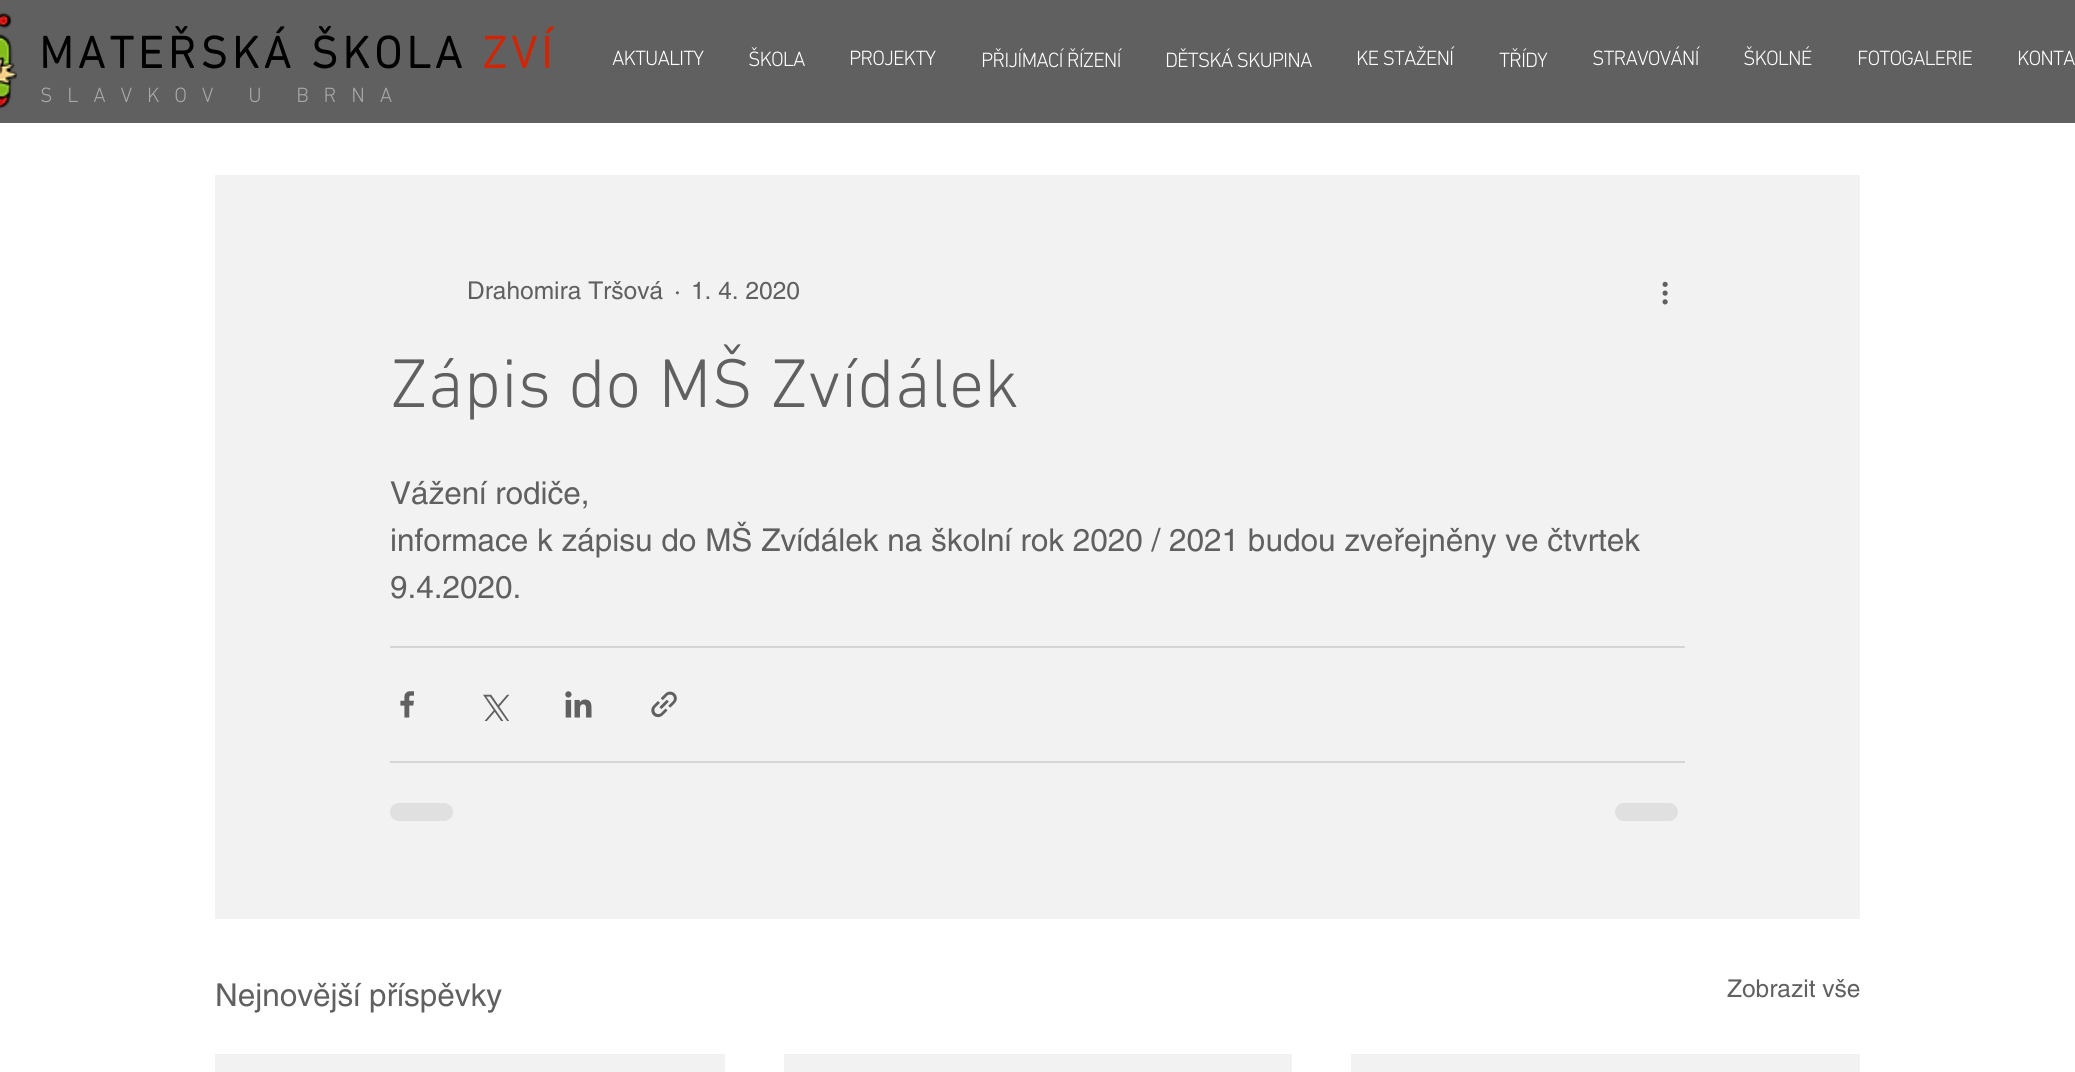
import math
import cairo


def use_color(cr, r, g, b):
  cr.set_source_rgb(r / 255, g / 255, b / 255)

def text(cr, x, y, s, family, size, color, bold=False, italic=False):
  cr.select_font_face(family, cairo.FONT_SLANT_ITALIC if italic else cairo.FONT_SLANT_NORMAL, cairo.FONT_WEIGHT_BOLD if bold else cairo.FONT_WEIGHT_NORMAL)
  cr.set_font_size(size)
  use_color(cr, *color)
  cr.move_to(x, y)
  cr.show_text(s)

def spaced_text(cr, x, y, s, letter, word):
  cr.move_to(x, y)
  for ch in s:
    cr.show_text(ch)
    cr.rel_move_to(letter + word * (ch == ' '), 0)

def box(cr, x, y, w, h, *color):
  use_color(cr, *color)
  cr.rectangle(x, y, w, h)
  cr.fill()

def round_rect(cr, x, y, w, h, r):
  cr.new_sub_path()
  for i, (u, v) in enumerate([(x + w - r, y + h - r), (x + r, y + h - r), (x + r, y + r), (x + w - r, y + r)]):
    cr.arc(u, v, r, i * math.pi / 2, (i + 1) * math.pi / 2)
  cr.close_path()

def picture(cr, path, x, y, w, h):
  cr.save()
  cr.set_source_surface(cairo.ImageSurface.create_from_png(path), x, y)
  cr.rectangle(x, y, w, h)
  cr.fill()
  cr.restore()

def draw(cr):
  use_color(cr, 255, 255, 255)
  cr.paint()
  box(cr, 0, 0, 2075, 123, 96, 96, 96)
  picture(cr, "img_01.png", 0, 12, 17, 96)
  box(cr, 215, 175, 1645, 744, 242, 242, 242)
  picture(cr, "img_02.png", 1662, 281, 6, 24)
  box(cr, 390, 646, 1295, 2, 213, 213, 213)
  picture(cr, "img_03.png", 400, 691, 14, 27)
  picture(cr, "img_04.png", 483, 694, 26, 27)
  picture(cr, "img_05.png", 565, 691, 27, 27)
  picture(cr, "img_06.png", 651, 691, 26, 27)
  box(cr, 390, 761, 1295, 2, 213, 213, 213)
  use_color(cr, 224, 224, 224)
  round_rect(cr, 390, 803, 63, 18, 9)
  cr.fill()
  round_rect(cr, 1615, 803, 63, 18, 9)
  cr.fill()
  box(cr, 215, 1054, 510, 18, 242, 242, 242)
  box(cr, 784, 1054, 508, 18, 242, 242, 242)
  box(cr, 1351, 1054, 509, 18, 242, 242, 242)
  cr.select_font_face("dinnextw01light", cairo.FONT_SLANT_NORMAL, cairo.FONT_WEIGHT_BOLD)
  cr.set_font_size(45.5)
  use_color(cr, 0, 0, 0)
  spaced_text(cr, 39, 68, "MATEŘSKÁ ŠKOLA", 4.5, 0)
  use_color(cr, 211, 35, 0)
  spaced_text(cr, 482, 68, "ZVÍ", 4.5, 0)
  cr.select_font_face("dinnextw01light Light")
  cr.set_font_size(21)
  use_color(cr, 169, 169, 169)
  spaced_text(cr, 40, 102, "SLAVKOV U BRNA", 14.75, 0)
  use_color(cr, 255, 255, 255)
  spaced_text(cr, 612, 65, "AKTUALITY", -1, 0)
  spaced_text(cr, 748, 66, "ŠKOLA", -1, 0)
  spaced_text(cr, 849, 65, "PROJEKTY", -1, 0)
  spaced_text(cr, 981, 67, "PŘIJÍMACÍ ŘÍZENÍ", -1, 0)
  spaced_text(cr, 1165, 67, "DĚTSKÁ SKUPINA", -1, 0)
  spaced_text(cr, 1356, 65, "KE STAŽENÍ", -1, 0)
  spaced_text(cr, 1499, 67, "TŘÍDY", -1, 0)
  spaced_text(cr, 1592, 65, "STRAVOVÁNÍ", -1, 0)
  spaced_text(cr, 1743, 65, "ŠKOLNÉ", -1, 0)
  spaced_text(cr, 1857, 65, "FOTOGALERIE", -1, 0)
  spaced_text(cr, 2017, 65, "KONTA", -1, 0)
  text(cr, 467, 299, "Drahomira Tršová", "helvetica", 24.5, (96, 96, 96))
  text(cr, 674, 299, "·", "helvetica", 24.5, (96, 96, 96))
  text(cr, 691, 299, "1. 4. 2020", "helvetica", 24.5, (96, 96, 96))
  text(cr, 390, 407, "Zápis do MŠ Zvídálek", "dinnextw01light Light", 70, (96, 96, 96))
  text(cr, 390, 504, "Vážení rodiče,", "helvetica", 31.5, (96, 96, 96))
  text(cr, 390, 551, "informace k zápisu do MŠ Zvídálek na školní rok 2020 / 2021 budou zveřejněny ve čtvrtek", "helvetica", 31.5, (96, 96, 96))
  text(cr, 390, 598, "9.4.2020.", "helvetica", 31.5, (96, 96, 96))
  text(cr, 215, 1006, "Nejnovější příspěvky", "helvetica", 31.5, (96, 96, 96))
  text(cr, 1727, 997, "Zobrazit vše", "helvetica", 24.5, (96, 96, 96))


surface = cairo.ImageSurface(cairo.FORMAT_RGB24, 2075, 1072)
cr = cairo.Context(surface)
options = cairo.FontOptions()
options.set_hint_metrics(cairo.HINT_METRICS_OFF)
options.set_hint_style(cairo.HINT_STYLE_NONE)
cr.set_font_options(options)
cr.set_miter_limit(4)
draw(cr)
surface.write_to_png("out.png")
